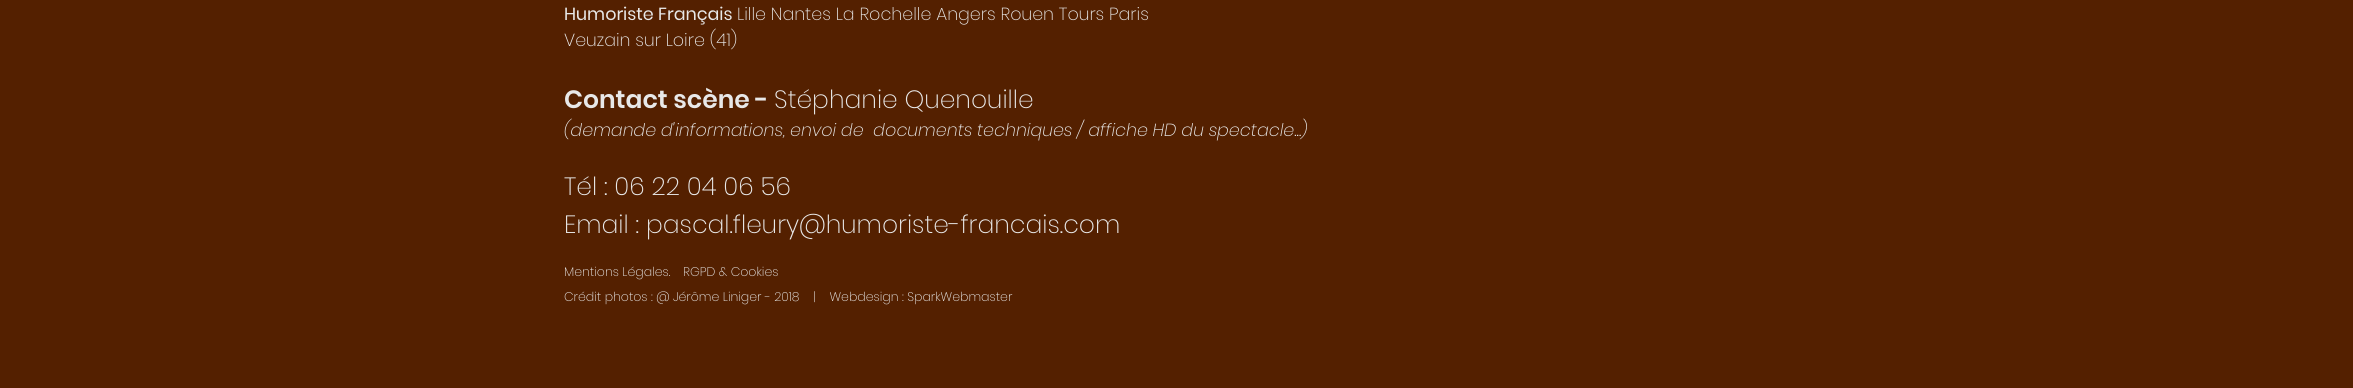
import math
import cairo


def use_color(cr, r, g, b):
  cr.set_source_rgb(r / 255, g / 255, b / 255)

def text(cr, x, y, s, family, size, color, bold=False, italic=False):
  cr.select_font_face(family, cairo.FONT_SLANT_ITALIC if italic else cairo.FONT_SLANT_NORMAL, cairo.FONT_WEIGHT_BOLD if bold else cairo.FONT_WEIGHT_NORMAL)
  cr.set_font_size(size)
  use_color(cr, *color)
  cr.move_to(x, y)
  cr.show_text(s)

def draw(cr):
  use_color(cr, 84, 32, 0)
  cr.paint()
  text(cr, 564, 20, "Humoriste Français", "Poppins", 17.5, (232, 232, 232))
  text(cr, 737, 20, "Lille Nantes La Rochelle Angers Rouen Tours Paris", "Poppins ExtraLight", 17.5, (232, 232, 232))
  text(cr, 564, 46, "Veuzain sur Loire (41)", "Poppins ExtraLight", 17.5, (232, 232, 232))
  text(cr, 564, 108, "Contact scène -", "Poppins SemiBold", 25, (232, 232, 232))
  text(cr, 774, 108, "Stéphanie Quenouille", "Poppins ExtraLight", 25, (232, 232, 232))
  text(cr, 564, 136, "(demande d'informations, envoi de  documents techniques / affiche HD du spectacle...)", "Poppins ExtraLight", 17.5, (232, 232, 232), italic=True)
  text(cr, 564, 195, "Tél : 06 22 04 06 56", "Poppins ExtraLight", 25, (232, 232, 232))
  text(cr, 564, 233, "Email : pascal.fleury@humoriste-francais.com", "Poppins ExtraLight", 25, (232, 232, 232))
  text(cr, 564, 276, "Mentions Légales.", "Poppins ExtraLight", 12.5, (232, 232, 232))
  text(cr, 683, 276, "RGPD & Cookies", "Poppins ExtraLight", 12.5, (232, 232, 232))
  text(cr, 564, 301, "Crédit photos : @ Jérôme Liniger - 2018    |    Webdesign : SparkWebmaster", "Poppins ExtraLight", 12.5, (232, 232, 232))


surface = cairo.ImageSurface(cairo.FORMAT_RGB24, 2353, 388)
cr = cairo.Context(surface)
options = cairo.FontOptions()
options.set_hint_metrics(cairo.HINT_METRICS_OFF)
options.set_hint_style(cairo.HINT_STYLE_NONE)
cr.set_font_options(options)
cr.set_miter_limit(4)
draw(cr)
surface.write_to_png("out.png")
